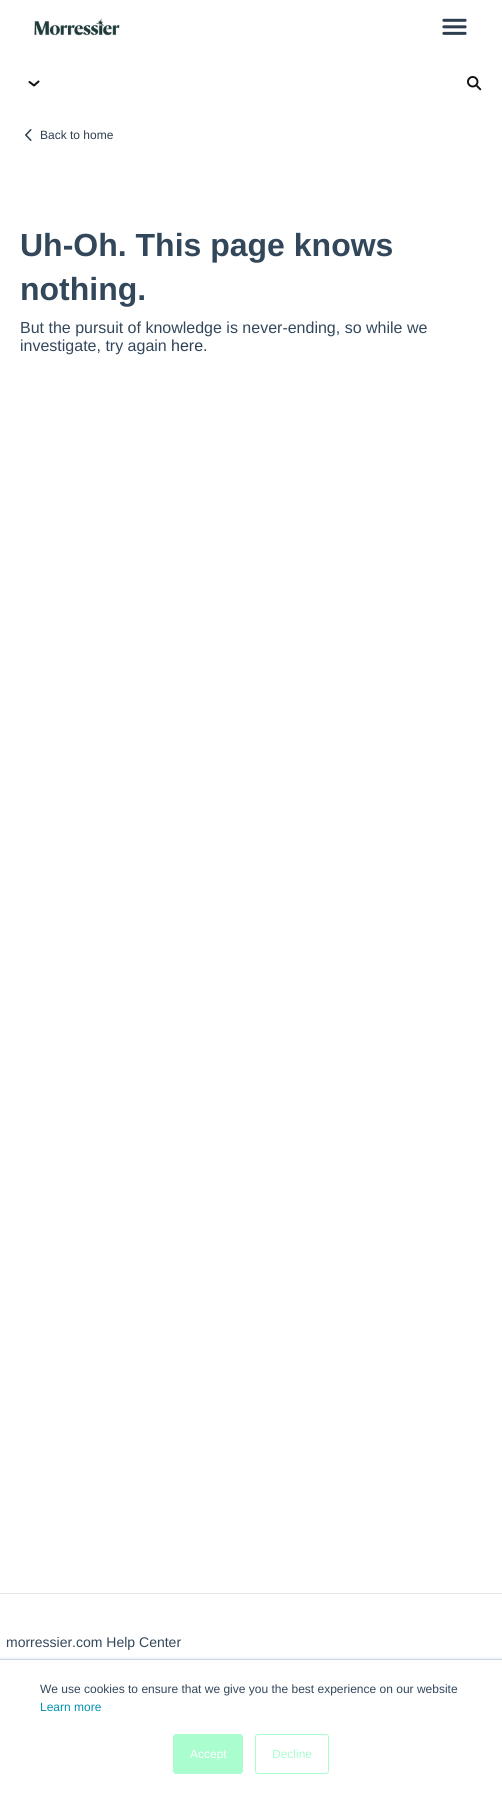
import math
import cairo


def use_color(cr, r, g, b):
  cr.set_source_rgb(r / 255, g / 255, b / 255)

def text(cr, x, y, s, family, size, color, bold=False, italic=False):
  cr.select_font_face(family, cairo.FONT_SLANT_ITALIC if italic else cairo.FONT_SLANT_NORMAL, cairo.FONT_WEIGHT_BOLD if bold else cairo.FONT_WEIGHT_NORMAL)
  cr.set_font_size(size)
  use_color(cr, *color)
  cr.move_to(x, y)
  cr.show_text(s)

def box(cr, x, y, w, h, *color):
  use_color(cr, *color)
  cr.rectangle(x, y, w, h)
  cr.fill()

def round_rect(cr, x, y, w, h, r):
  cr.new_sub_path()
  for i, (u, v) in enumerate([(x + w - r, y + h - r), (x + r, y + h - r), (x + r, y + r), (x + w - r, y + r)]):
    cr.arc(u, v, r, i * math.pi / 2, (i + 1) * math.pi / 2)
  cr.close_path()

def shadow(cr, x, y, w, h, r, blur, alpha):
  cr.push_group_with_content(cairo.CONTENT_ALPHA)
  cr.set_operator(cairo.OPERATOR_SOURCE)
  for i in range(15, -16, -2):
    e = blur * i / 6
    if min(w, h) + 2 * e > 0:
      cr.set_source_rgba(0, 0, 0, alpha * math.erfc((i - 1) / 8.5) / 2)
      round_rect(cr, x - e, y - e, w + 2 * e, h + 2 * e, max(0, min(r + e + blur * .6, min(w, h) / 2 + e)))
      cr.fill()
  cr.mask(cr.pop_group())

def picture(cr, path, x, y, w, h):
  cr.save()
  cr.set_source_surface(cairo.ImageSurface.create_from_png(path), x, y)
  cr.rectangle(x, y, w, h)
  cr.fill()
  cr.restore()

def draw(cr):
  use_color(cr, 255, 255, 255)
  cr.paint()
  picture(cr, "img_01.png", 34, 18, 86, 18)
  picture(cr, "img_02.png", 442, 18, 25, 17)
  cr.new_path()
  cr.move_to(38.5, 81.5)
  cr.line_to(34, 85.5)
  cr.line_to(29.5, 82)
  use_color(cr, 17, 17, 17)
  cr.set_line_cap(cairo.LINE_CAP_ROUND)
  cr.set_line_join(cairo.LINE_JOIN_ROUND)
  cr.stroke()
  picture(cr, "img_03.png", 467, 76, 15, 15)
  picture(cr, "img_04.png", 25, 129, 7, 12)
  box(cr, 0, 1593, 502, 1, 230, 230, 230)
  use_color(cr, 234, 240, 246)
  shadow(cr, 0, 1658, 502, 141, 0, 1.5, 1)
  box(cr, 0, 1660, 502, 140, 255, 255, 255)
  box(cr, 0, 1659, 502, 1, 203, 214, 226)
  use_color(cr, 169, 253, 207)
  round_rect(cr, 173.5, 1734.5, 69, 39, 2.5)
  cr.fill_preserve()
  cr.set_line_width(1)
  cr.set_line_cap(cairo.LINE_CAP_BUTT)
  cr.set_line_join(cairo.LINE_JOIN_MITER)
  cr.stroke()
  round_rect(cr, 255.5, 1734.5, 73, 39, 2.5)
  cr.stroke()
  text(cr, 40, 139, "Back to home", "Liberation Sans", 12, (45, 62, 80))
  text(cr, 20, 256, "Uh-Oh. This page knows", "Liberation Sans", 32, (51, 71, 91), bold=True)
  text(cr, 20, 300, "nothing.", "Liberation Sans", 32, (51, 71, 91), bold=True)
  text(cr, 20, 333, "But the pursuit of knowledge is never-ending, so while we", "Liberation Sans", 16, (51, 71, 91))
  text(cr, 20, 351, "investigate, try again", "Liberation Sans", 16, (51, 71, 91))
  text(cr, 171, 351, "here.", "Liberation Sans", 16, (45, 62, 80))
  text(cr, 6, 1647, "morressier.com Help Center", "Liberation Sans", 14, (51, 71, 91))
  text(cr, 40, 1693, "We use cookies to ensure that we give you the best experience on our website", "Liberation Sans", 12, (51, 71, 91))
  text(cr, 40, 1711, "Learn more", "Liberation Sans", 12, (0, 145, 174))
  text(cr, 190, 1758, "Accept", "Liberation Sans", 12, (255, 255, 255))
  text(cr, 272, 1758, "Decline", "Liberation Sans", 12, (169, 253, 207))


surface = cairo.ImageSurface(cairo.FORMAT_RGB24, 502, 1800)
cr = cairo.Context(surface)
options = cairo.FontOptions()
options.set_hint_metrics(cairo.HINT_METRICS_OFF)
options.set_hint_style(cairo.HINT_STYLE_NONE)
cr.set_font_options(options)
cr.set_miter_limit(4)
draw(cr)
surface.write_to_png("out.png")
